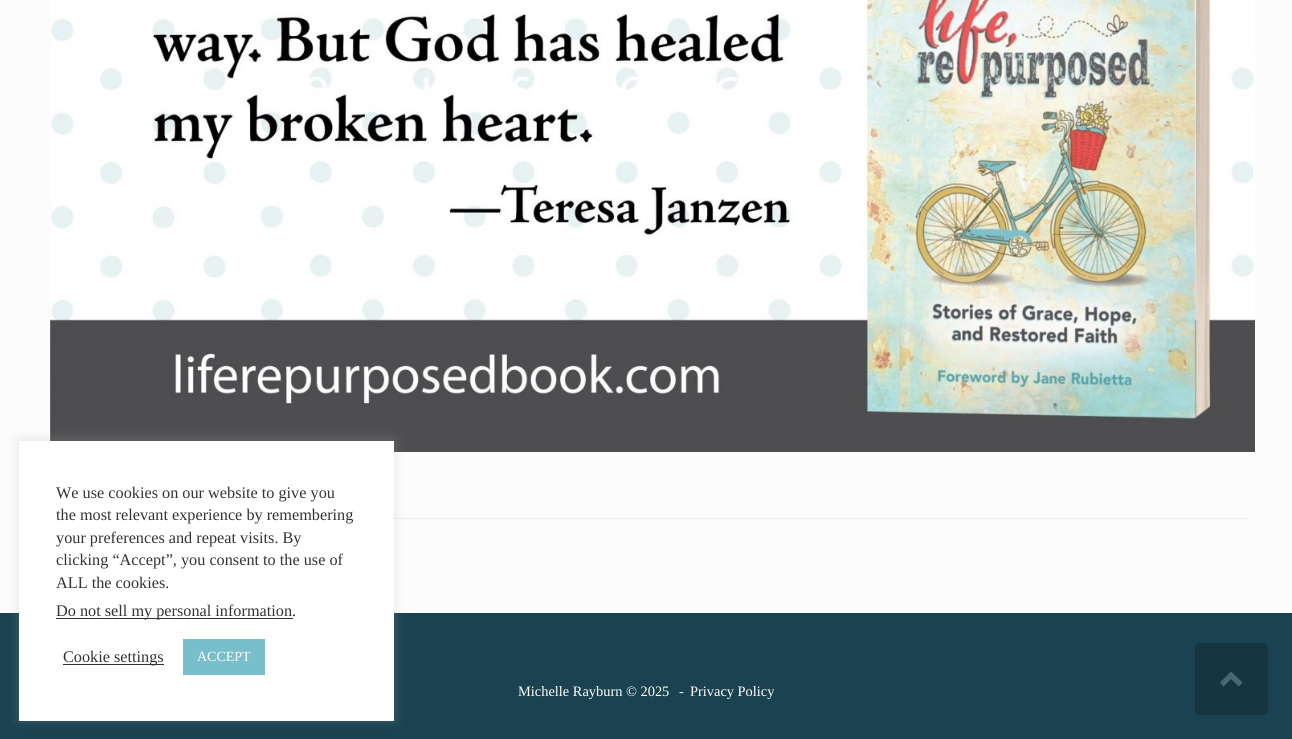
import math
import cairo


def use_color(cr, r, g, b):
  cr.set_source_rgb(r / 255, g / 255, b / 255)

def text(cr, x, y, s, family, size, color, bold=False, italic=False):
  cr.select_font_face(family, cairo.FONT_SLANT_ITALIC if italic else cairo.FONT_SLANT_NORMAL, cairo.FONT_WEIGHT_BOLD if bold else cairo.FONT_WEIGHT_NORMAL)
  cr.set_font_size(size)
  use_color(cr, *color)
  cr.move_to(x, y)
  cr.show_text(s)

def box(cr, x, y, w, h, *color):
  use_color(cr, *color)
  cr.rectangle(x, y, w, h)
  cr.fill()

def round_rect(cr, x, y, w, h, r):
  cr.new_sub_path()
  for i, (u, v) in enumerate([(x + w - r, y + h - r), (x + r, y + h - r), (x + r, y + r), (x + w - r, y + r)]):
    cr.arc(u, v, r, i * math.pi / 2, (i + 1) * math.pi / 2)
  cr.close_path()

def shadow(cr, x, y, w, h, r, blur, alpha):
  cr.push_group_with_content(cairo.CONTENT_ALPHA)
  cr.set_operator(cairo.OPERATOR_SOURCE)
  for i in range(15, -16, -2):
    e = blur * i / 6
    if min(w, h) + 2 * e > 0:
      cr.set_source_rgba(0, 0, 0, alpha * math.erfc((i - 1) / 8.5) / 2)
      round_rect(cr, x - e, y - e, w + 2 * e, h + 2 * e, max(0, min(r + e + blur * .6, min(w, h) / 2 + e)))
      cr.fill()
  cr.mask(cr.pop_group())

def picture(cr, path, x, y, w, h):
  cr.save()
  cr.set_source_surface(cairo.ImageSurface.create_from_png(path), x, y)
  cr.rectangle(x, y, w, h)
  cr.fill()
  cr.restore()

def draw(cr):
  use_color(cr, 26, 66, 81)
  cr.paint()
  box(cr, 0, 0, 1292, 613, 252, 252, 252)
  box(cr, 394, 518, 855, 1, 238, 238, 238)
  picture(cr, "img_01.png", 50, 0, 1205, 452)
  use_color(cr, 172, 171, 171)
  shadow(cr, 19, 440, 375, 280, 0, 6, 0.3)
  box(cr, 19, 441, 375, 280, 255, 255, 255)
  box(cr, 56, 618, 237, 1, 51, 51, 51)
  box(cr, 63, 664, 101, 1, 51, 51, 51)
  box(cr, 183, 639, 82, 36, 120, 191, 203)
  use_color(cr, 21, 53, 65)
  round_rect(cr, 1195, 643, 73, 72, 4)
  cr.fill()
  use_color(cr, 72, 104, 116)
  cr.new_path()
  cr.move_to(1242.5, 682.5)
  cr.line_to(1231, 671.5)
  cr.line_to(1220, 682.5)
  cr.line_to(1223.5, 686.5)
  cr.line_to(1231, 679)
  cr.line_to(1239, 686.5)
  cr.close_path()
  cr.fill()
  text(cr, 56, 498, "We use cookies on our website to give you", "Liberation Serif", 16.25, (51, 51, 51))
  text(cr, 56, 520, "the most relevant experience by remembering", "Liberation Serif", 16.25, (51, 51, 51))
  text(cr, 56, 543, "your preferences and repeat visits. By", "Liberation Serif", 16.25, (51, 51, 51))
  text(cr, 56, 565, "clicking “Accept”, you consent to the use of", "Liberation Serif", 16.25, (51, 51, 51))
  text(cr, 56, 588, "ALL the cookies.", "Liberation Serif", 16.25, (51, 51, 51))
  text(cr, 56, 616, "Do not sell my personal information.", "Liberation Serif", 16.25, (51, 51, 51))
  text(cr, 63, 662, "Cookie settings", "Liberation Serif", 16.25, (51, 51, 51))
  text(cr, 197, 661, "ACCEPT", "Liberation Serif", 14, (255, 255, 255))
  text(cr, 518, 696, "Michelle Rayburn © 2025", "Liberation Serif", 14.4, (255, 255, 255))
  text(cr, 679, 696, "-", "Liberation Serif", 14.4, (255, 255, 255))
  text(cr, 690, 696, "Privacy Policy", "Liberation Serif", 14.4, (255, 255, 255))


surface = cairo.ImageSurface(cairo.FORMAT_RGB24, 1292, 739)
cr = cairo.Context(surface)
options = cairo.FontOptions()
options.set_hint_metrics(cairo.HINT_METRICS_OFF)
options.set_hint_style(cairo.HINT_STYLE_NONE)
cr.set_font_options(options)
cr.set_miter_limit(4)
draw(cr)
surface.write_to_png("out.png")
